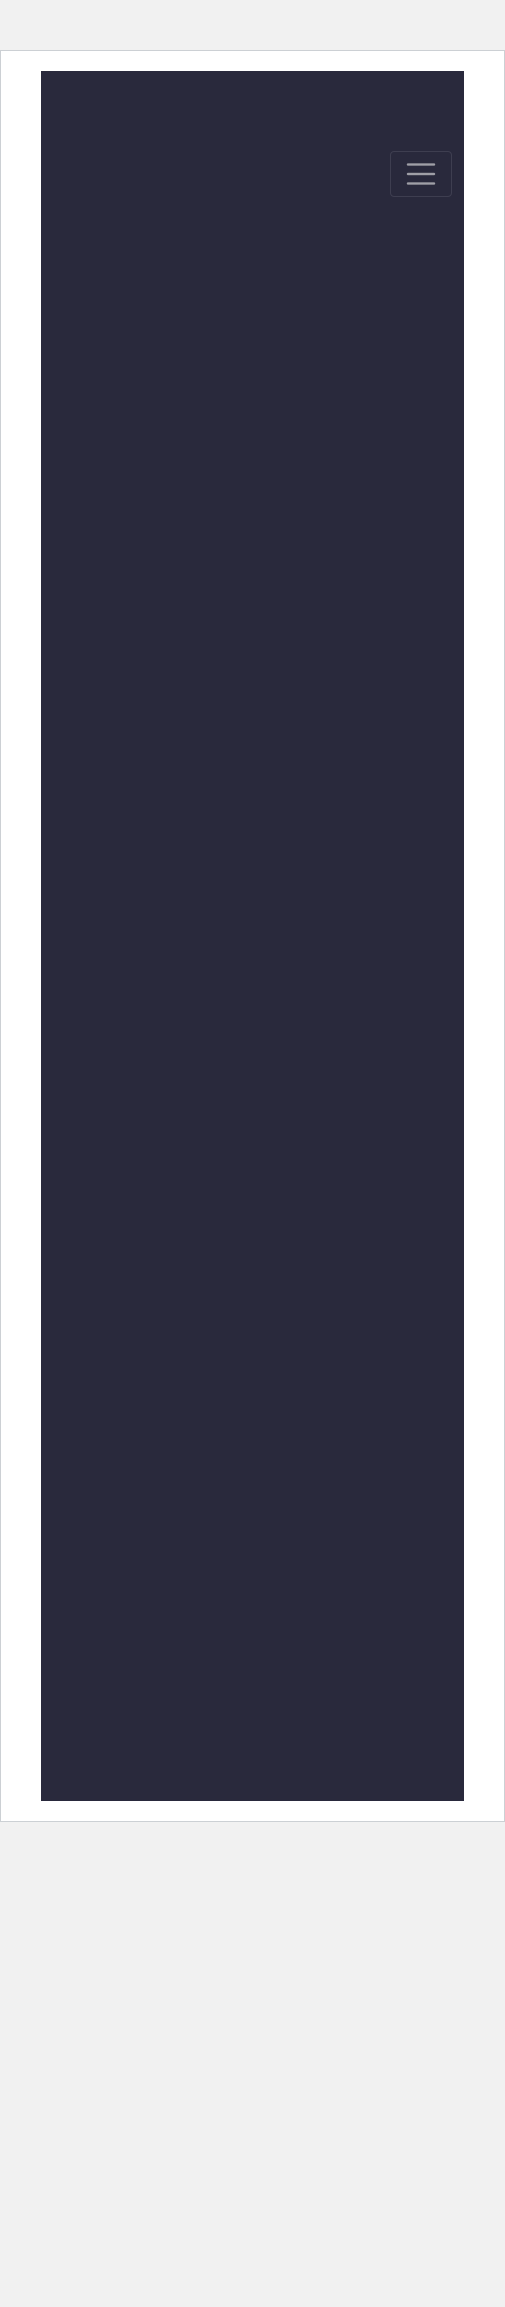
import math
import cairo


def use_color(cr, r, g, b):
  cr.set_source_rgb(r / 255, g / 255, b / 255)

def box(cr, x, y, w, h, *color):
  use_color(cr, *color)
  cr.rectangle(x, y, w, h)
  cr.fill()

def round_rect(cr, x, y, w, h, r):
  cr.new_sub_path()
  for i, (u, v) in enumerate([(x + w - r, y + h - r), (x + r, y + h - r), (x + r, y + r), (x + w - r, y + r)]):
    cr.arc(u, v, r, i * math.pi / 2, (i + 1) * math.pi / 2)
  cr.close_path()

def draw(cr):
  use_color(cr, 241, 241, 241)
  cr.paint()
  use_color(cr, 255, 255, 255)
  cr.rectangle(0.5, 50.5, 504, 1771)
  cr.fill_preserve()
  use_color(cr, 204, 208, 212)
  cr.set_line_width(1)
  cr.stroke()
  box(cr, 41, 71, 423, 1730, 41, 41, 60)
  round_rect(cr, 390.5, 151.5, 61, 45, 3.5)
  use_color(cr, 62, 62, 80)
  cr.stroke()
  cr.new_path()
  cr.move_to(408, 164.5)
  cr.line_to(434, 164.5)
  cr.move_to(408, 174)
  cr.line_to(434, 174)
  cr.move_to(408, 183.5)
  cr.line_to(434, 183.5)
  use_color(cr, 159, 159, 167)
  cr.set_line_width(2.4)
  cr.set_line_cap(cairo.LINE_CAP_ROUND)
  cr.stroke()


surface = cairo.ImageSurface(cairo.FORMAT_RGB24, 505, 2307)
cr = cairo.Context(surface)
options = cairo.FontOptions()
options.set_hint_metrics(cairo.HINT_METRICS_OFF)
options.set_hint_style(cairo.HINT_STYLE_NONE)
cr.set_font_options(options)
cr.set_miter_limit(4)
draw(cr)
surface.write_to_png("out.png")
